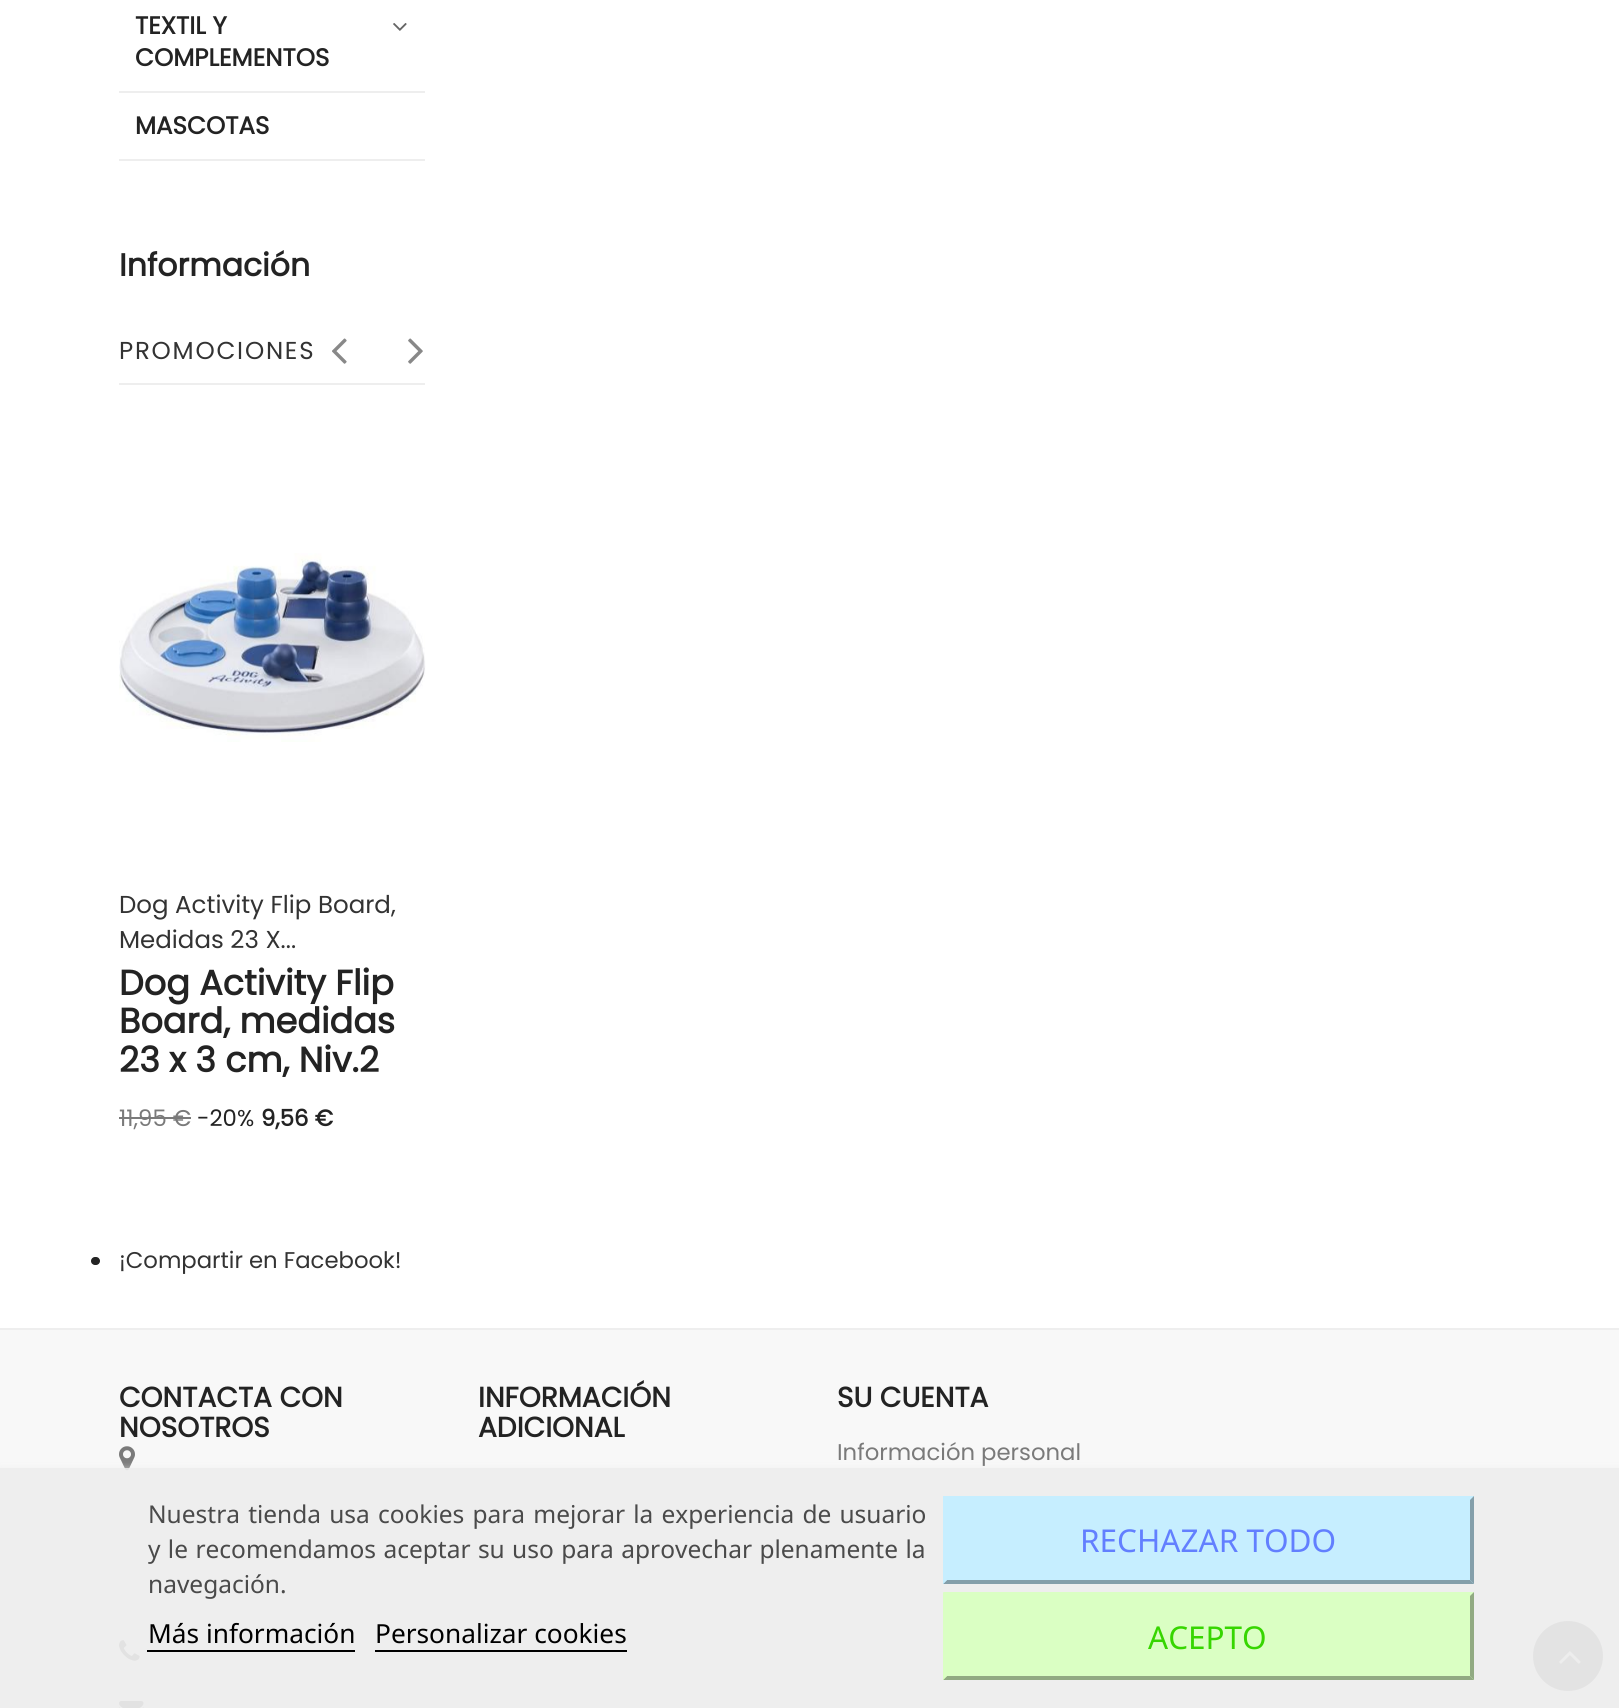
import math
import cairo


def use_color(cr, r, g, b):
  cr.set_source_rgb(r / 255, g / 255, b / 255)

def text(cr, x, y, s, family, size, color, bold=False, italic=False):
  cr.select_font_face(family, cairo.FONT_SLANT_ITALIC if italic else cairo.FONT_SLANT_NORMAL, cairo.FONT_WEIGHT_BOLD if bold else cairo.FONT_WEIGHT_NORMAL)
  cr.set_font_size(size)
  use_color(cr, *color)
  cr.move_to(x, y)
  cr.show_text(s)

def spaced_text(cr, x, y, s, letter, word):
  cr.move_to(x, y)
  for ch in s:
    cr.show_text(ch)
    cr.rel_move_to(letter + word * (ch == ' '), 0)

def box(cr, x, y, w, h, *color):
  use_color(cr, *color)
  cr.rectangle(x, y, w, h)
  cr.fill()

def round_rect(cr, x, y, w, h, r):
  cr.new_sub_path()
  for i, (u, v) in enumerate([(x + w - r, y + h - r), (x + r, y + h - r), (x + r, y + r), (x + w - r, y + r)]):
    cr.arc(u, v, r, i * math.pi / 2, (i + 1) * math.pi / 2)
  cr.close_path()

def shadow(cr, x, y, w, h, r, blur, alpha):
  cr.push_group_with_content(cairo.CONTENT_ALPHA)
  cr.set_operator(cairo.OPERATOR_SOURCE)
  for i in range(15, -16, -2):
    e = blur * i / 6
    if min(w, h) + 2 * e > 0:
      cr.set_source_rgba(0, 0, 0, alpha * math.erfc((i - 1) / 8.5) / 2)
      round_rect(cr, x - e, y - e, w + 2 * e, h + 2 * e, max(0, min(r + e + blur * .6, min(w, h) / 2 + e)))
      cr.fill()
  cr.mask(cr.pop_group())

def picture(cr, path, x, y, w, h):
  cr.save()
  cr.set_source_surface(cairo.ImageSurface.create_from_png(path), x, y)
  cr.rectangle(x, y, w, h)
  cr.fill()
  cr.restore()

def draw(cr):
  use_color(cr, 255, 255, 255)
  cr.paint()
  box(cr, 119, 91, 306, 2, 238, 238, 238)
  picture(cr, "img_01.png", 393, 23, 14, 8)
  box(cr, 119, 159, 306, 2, 238, 238, 238)
  picture(cr, "img_02.png", 332, 338, 15, 26)
  picture(cr, "img_03.png", 408, 338, 15, 26)
  box(cr, 119, 383, 306, 2, 238, 238, 238)
  picture(cr, "img_04.png", 119, 553, 307, 189)
  box(cr, 119, 1117, 72, 2, 122, 122, 122)
  use_color(cr, 35, 35, 35)
  round_rect(cr, 91, 1257, 9, 8, 4)
  cr.fill()
  box(cr, 0, 1330, 1619, 378, 248, 248, 248)
  box(cr, 0, 1328, 1619, 2, 238, 238, 238)
  picture(cr, "img_05.png", 119, 1446, 16, 25)
  picture(cr, "img_06.png", 119, 1640, 21, 21)
  picture(cr, "img_07.png", 119, 1701, 25, 7)
  use_color(cr, 136, 136, 136)
  cr.arc(1568, 1656, 35, 0, 2 * math.pi)
  cr.fill()
  picture(cr, "img_08.png", 1559, 1651, 22, 13)
  cr.save()
  cr.set_fill_rule(cairo.FILL_RULE_EVEN_ODD)
  cr.new_path()
  cr.move_to(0, 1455)
  cr.line_to(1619, 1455)
  cr.line_to(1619, 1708)
  cr.line_to(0, 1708)
  cr.close_path()
  cr.move_to(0, 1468)
  cr.line_to(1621, 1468)
  cr.line_to(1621, 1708)
  cr.line_to(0, 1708)
  cr.close_path()
  cr.clip()
  use_color(cr, 237, 237, 237)
  shadow(cr, 0, 1470, 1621, 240, 0, 4.5, 1)
  cr.restore()
  cr.set_source_rgba(0.929, 0.929, 0.929, 0.9)
  cr.rectangle(0, 1468, 1619, 240)
  cr.fill()
  box(cr, 147, 1650, 208, 2, 0, 0, 0)
  box(cr, 375, 1650, 252, 2, 0, 0, 0)
  box(cr, 943, 1496, 531, 88, 198, 238, 255)
  use_color(cr, 132, 159, 170)
  cr.new_path()
  cr.move_to(1474, 1496)
  cr.line_to(1474, 1584)
  cr.line_to(1470, 1580)
  cr.line_to(1470, 1500)
  cr.close_path()
  cr.fill()
  cr.new_path()
  cr.move_to(1474, 1584)
  cr.line_to(943, 1584)
  cr.line_to(947, 1580)
  cr.line_to(1470, 1580)
  cr.close_path()
  cr.fill()
  use_color(cr, 198, 238, 255)
  cr.new_path()
  cr.move_to(943, 1584)
  cr.line_to(943, 1496)
  cr.line_to(947, 1500)
  cr.line_to(947, 1580)
  cr.close_path()
  cr.fill()
  box(cr, 943, 1593, 531, 87, 218, 255, 195)
  cr.new_path()
  cr.move_to(943, 1592)
  cr.line_to(1474, 1592)
  cr.line_to(1470, 1596)
  cr.line_to(947, 1596)
  cr.close_path()
  cr.fill()
  use_color(cr, 145, 170, 130)
  cr.new_path()
  cr.move_to(1474, 1592)
  cr.line_to(1474, 1680)
  cr.line_to(1470, 1676)
  cr.line_to(1470, 1596)
  cr.close_path()
  cr.fill()
  cr.new_path()
  cr.move_to(1474, 1680)
  cr.line_to(943, 1680)
  cr.line_to(947, 1676)
  cr.line_to(1470, 1676)
  cr.close_path()
  cr.fill()
  use_color(cr, 218, 255, 195)
  cr.new_path()
  cr.move_to(943, 1680)
  cr.line_to(943, 1592)
  cr.line_to(947, 1596)
  cr.line_to(947, 1676)
  cr.close_path()
  cr.fill()
  text(cr, 135, 34, "TEXTIL Y", "Poppins", 24.5, (35, 35, 35), bold=True)
  text(cr, 135, 66, "COMPLEMENTOS", "Poppins", 24.5, (35, 35, 35), bold=True)
  text(cr, 135, 134, "MASCOTAS", "Poppins", 24.5, (35, 35, 35), bold=True)
  text(cr, 119, 276, "Información", "Poppins", 31.5, (35, 35, 35), bold=True)
  cr.select_font_face("Poppins")
  cr.set_font_size(24.5)
  use_color(cr, 51, 51, 51)
  spaced_text(cr, 119, 359, "PROMOCIONES", 1.75, 0)
  text(cr, 119, 913, "Dog Activity Flip Board,", "Poppins", 24.5, (51, 51, 51))
  text(cr, 119, 948, "Medidas 23 X...", "Poppins", 24.5, (51, 51, 51))
  text(cr, 119, 995, "Dog Activity Flip", "Poppins", 35, (35, 35, 35), bold=True)
  text(cr, 119, 1033, "Board, medidas", "Poppins", 35, (35, 35, 35), bold=True)
  text(cr, 119, 1072, "23 x 3 cm, Niv.2", "Poppins", 35, (35, 35, 35), bold=True)
  text(cr, 119, 1126, "11,95 €", "Poppins", 22.75, (122, 122, 122))
  text(cr, 197, 1126, "-20%", "Poppins", 22.75, (35, 35, 35))
  text(cr, 261, 1126, "9,56 €", "Poppins", 22.75, (35, 35, 35), bold=True)
  text(cr, 119, 1268, "¡Compartir en Facebook!", "Poppins", 22.75, (51, 51, 51))
  text(cr, 119, 1407, "CONTACTA CON", "Poppins", 28, (35, 35, 35), bold=True)
  text(cr, 119, 1437, "NOSOTROS", "Poppins", 28, (35, 35, 35), bold=True)
  text(cr, 478, 1407, "INFORMACIÓN", "Poppins", 28, (35, 35, 35), bold=True)
  text(cr, 478, 1437, "ADICIONAL", "Poppins", 28, (35, 35, 35), bold=True)
  text(cr, 837, 1407, "SU CUENTA", "Poppins", 28, (35, 35, 35), bold=True)
  text(cr, 837, 1460, "Información personal", "Poppins", 22.75, (122, 122, 122))
  cr.select_font_face("Noto Sans")
  cr.set_font_size(24.5)
  use_color(cr, 74, 74, 74)
  spaced_text(cr, 148, 1523, "Nuestra tienda usa cookies para mejorar la experiencia de usuario", 0, 1.75)
  spaced_text(cr, 148, 1558, "y le recomendamos aceptar su uso para aprovechar plenamente la", 0, 1)
  text(cr, 148, 1593, "navegación.", "Noto Sans", 24.5, (74, 74, 74))
  text(cr, 148, 1643, "Más información", "Noto Sans", 26.25, (0, 0, 0))
  text(cr, 375, 1643, "Personalizar cookies", "Noto Sans", 26.25, (0, 0, 0))
  text(cr, 1080, 1552, "RECHAZAR TODO", "Noto Sans", 31.5, (98, 127, 255))
  text(cr, 1148, 1649, "ACEPTO", "Noto Sans", 31.5, (54, 214, 0))


surface = cairo.ImageSurface(cairo.FORMAT_RGB24, 1619, 1708)
cr = cairo.Context(surface)
options = cairo.FontOptions()
options.set_hint_metrics(cairo.HINT_METRICS_OFF)
options.set_hint_style(cairo.HINT_STYLE_NONE)
cr.set_font_options(options)
cr.set_miter_limit(4)
draw(cr)
surface.write_to_png("out.png")
